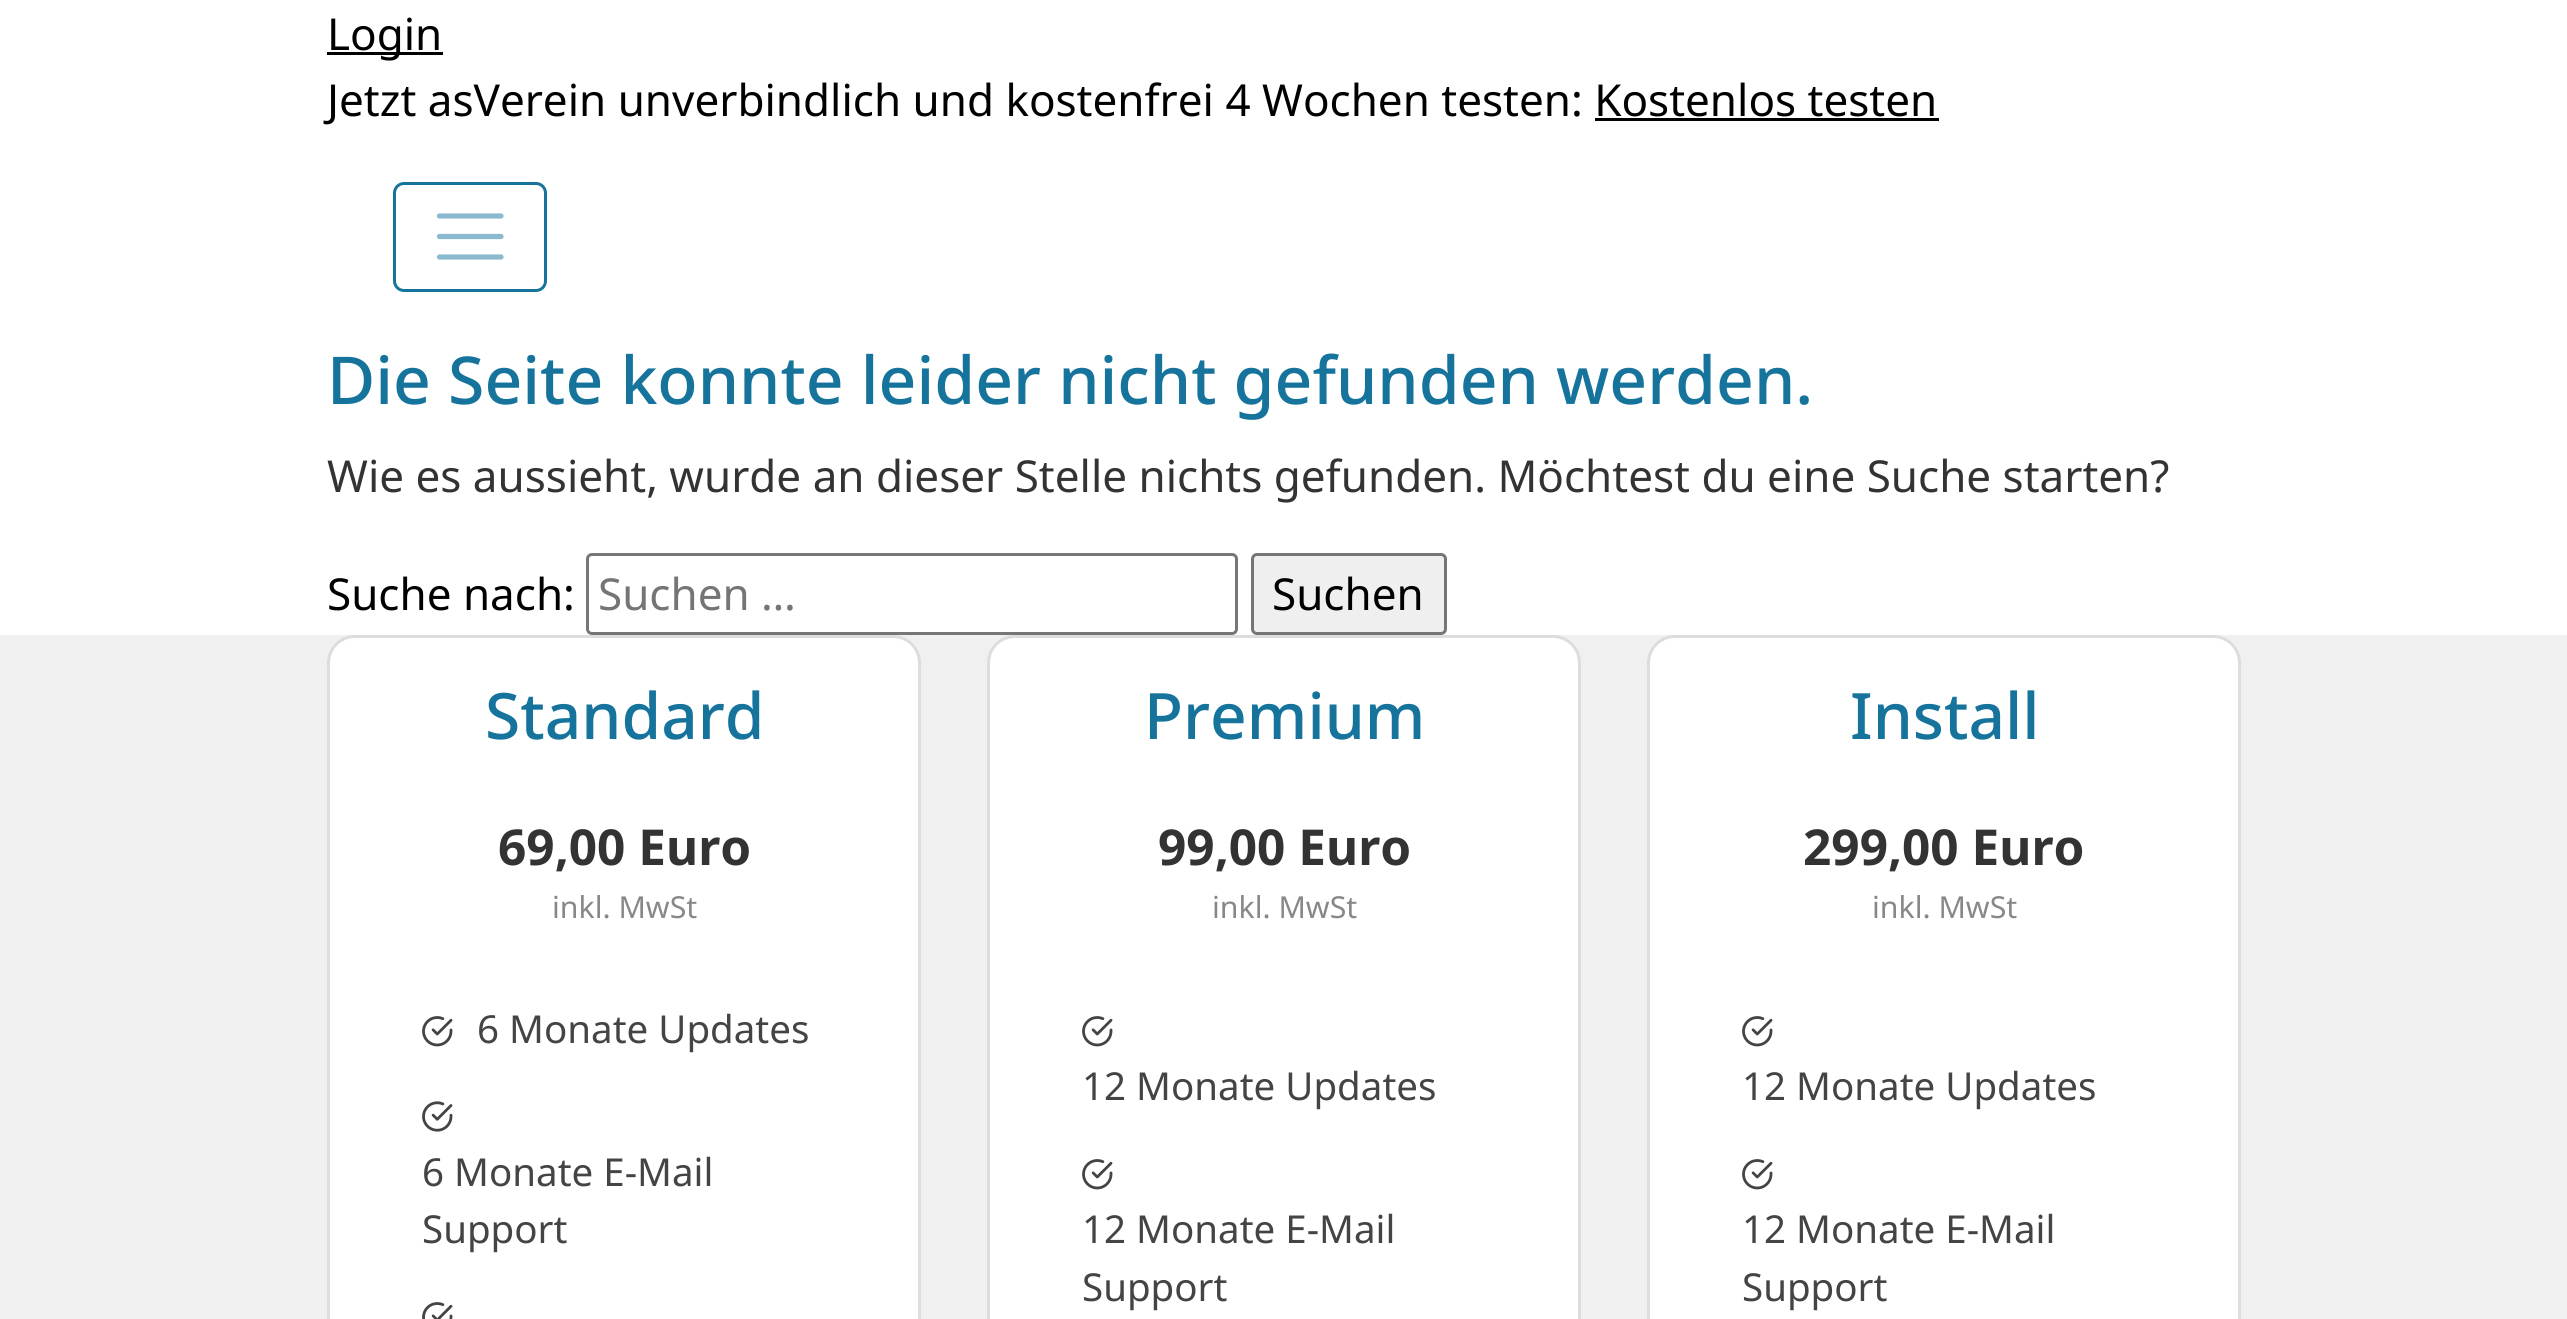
import math
import cairo


def use_color(cr, r, g, b):
  cr.set_source_rgb(r / 255, g / 255, b / 255)

def text(cr, x, y, s, family, size, color, bold=False, italic=False):
  cr.select_font_face(family, cairo.FONT_SLANT_ITALIC if italic else cairo.FONT_SLANT_NORMAL, cairo.FONT_WEIGHT_BOLD if bold else cairo.FONT_WEIGHT_NORMAL)
  cr.set_font_size(size)
  use_color(cr, *color)
  cr.move_to(x, y)
  cr.show_text(s)

def box(cr, x, y, w, h, *color):
  use_color(cr, *color)
  cr.rectangle(x, y, w, h)
  cr.fill()

def round_rect(cr, x, y, w, h, r):
  cr.new_sub_path()
  for i, (u, v) in enumerate([(x + w - r, y + h - r), (x + r, y + h - r), (x + r, y + r), (x + w - r, y + r)]):
    cr.arc(u, v, r, i * math.pi / 2, (i + 1) * math.pi / 2)
  cr.close_path()

def picture(cr, path, x, y, w, h):
  cr.save()
  cr.set_source_surface(cairo.ImageSurface.create_from_png(path), x, y)
  cr.rectangle(x, y, w, h)
  cr.fill()
  cr.restore()

def draw(cr):
  use_color(cr, 255, 255, 255)
  cr.paint()
  box(cr, 327, 52, 116, 3, 0, 0, 0)
  box(cr, 1595, 118, 344, 3, 0, 0, 0)
  round_rect(cr, 394.5, 183.5, 151, 107, 9.5)
  use_color(cr, 22, 116, 156)
  cr.set_line_width(3)
  cr.stroke()
  cr.new_path()
  cr.move_to(439.5, 216)
  cr.line_to(501, 216)
  cr.move_to(439.5, 236.5)
  cr.line_to(501, 236.5)
  cr.move_to(439.5, 257)
  cr.line_to(501, 257)
  use_color(cr, 139, 186, 206)
  cr.set_line_width(5.2)
  cr.set_line_cap(cairo.LINE_CAP_ROUND)
  cr.stroke()
  round_rect(cr, 587.5, 554.5, 649, 79, 4.5)
  use_color(cr, 118, 118, 118)
  cr.set_line_width(3)
  cr.set_line_cap(cairo.LINE_CAP_BUTT)
  cr.stroke()
  use_color(cr, 239, 239, 239)
  round_rect(cr, 1252.5, 554.5, 193, 79, 4.5)
  cr.fill_preserve()
  use_color(cr, 118, 118, 118)
  cr.stroke()
  box(cr, 0, 635, 2567, 684, 240, 240, 240)
  use_color(cr, 255, 255, 255)
  round_rect(cr, 328.5, 636.5, 591, 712, 26.5)
  cr.fill_preserve()
  use_color(cr, 221, 221, 221)
  cr.stroke()
  picture(cr, "img_01.png", 422, 1016, 31, 31)
  picture(cr, "img_02.png", 422, 1101, 31, 31)
  picture(cr, "img_03.png", 422, 1302, 31, 17)
  use_color(cr, 255, 255, 255)
  round_rect(cr, 988.5, 636.5, 591, 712, 26.5)
  cr.fill_preserve()
  use_color(cr, 221, 221, 221)
  cr.stroke()
  picture(cr, "img_01.png", 1082, 1016, 31, 31)
  picture(cr, "img_01.png", 1082, 1159, 31, 31)
  use_color(cr, 255, 255, 255)
  round_rect(cr, 1648.5, 636.5, 591, 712, 26.5)
  cr.fill_preserve()
  use_color(cr, 221, 221, 221)
  cr.stroke()
  picture(cr, "img_01.png", 1742, 1016, 31, 31)
  picture(cr, "img_01.png", 1742, 1159, 31, 31)
  text(cr, 327, 50, "Login", "Noto Sans", 44, (0, 0, 0))
  text(cr, 327, 116, "Jetzt asVerein unverbindlich und kostenfrei 4 Wochen testen: Kostenlos testen", "Noto Sans", 44, (0, 0, 0))
  text(cr, 327, 404, "Die Seite konnte leider nicht gefunden werden.", "Noto Sans Medium", 66, (22, 116, 156))
  text(cr, 327, 492, "Wie es aussieht, wurde an dieser Stelle nichts gefunden. Möchtest du eine Suche starten?", "Noto Sans", 44, (51, 51, 51))
  text(cr, 327, 610, "Suche nach:", "Noto Sans", 44, (0, 0, 0))
  text(cr, 598, 610, "Suchen …", "Noto Sans", 44, (117, 117, 117))
  text(cr, 1272, 610, "Suchen", "Noto Sans", 44, (0, 0, 0))
  text(cr, 485, 739, "Standard", "Noto Sans Medium", 64, (22, 116, 156))
  text(cr, 498, 865, "69,00 Euro", "Noto Sans", 49.5, (51, 51, 51), bold=True)
  text(cr, 552, 918, "inkl. MwSt", "Noto Sans", 30.25, (136, 136, 136))
  text(cr, 477, 1043, "6 Monate Updates", "Noto Sans", 38.5, (68, 68, 68))
  text(cr, 422, 1186, "6 Monate E-Mail", "Noto Sans", 38.5, (68, 68, 68))
  text(cr, 422, 1243, "Support", "Noto Sans", 38.5, (68, 68, 68))
  text(cr, 1144, 739, "Premium", "Noto Sans Medium", 64, (22, 116, 156))
  text(cr, 1158, 865, "99,00 Euro", "Noto Sans", 49.5, (51, 51, 51), bold=True)
  text(cr, 1212, 918, "inkl. MwSt", "Noto Sans", 30.25, (136, 136, 136))
  text(cr, 1082, 1100, "12 Monate Updates", "Noto Sans", 38.5, (68, 68, 68))
  text(cr, 1082, 1243, "12 Monate E-Mail", "Noto Sans", 38.5, (68, 68, 68))
  text(cr, 1082, 1301, "Support", "Noto Sans", 38.5, (68, 68, 68))
  text(cr, 1850, 739, "Install", "Noto Sans Medium", 64, (22, 116, 156))
  text(cr, 1803, 865, "299,00 Euro", "Noto Sans", 49.5, (51, 51, 51), bold=True)
  text(cr, 1872, 918, "inkl. MwSt", "Noto Sans", 30.25, (136, 136, 136))
  text(cr, 1742, 1100, "12 Monate Updates", "Noto Sans", 38.5, (68, 68, 68))
  text(cr, 1742, 1243, "12 Monate E-Mail", "Noto Sans", 38.5, (68, 68, 68))
  text(cr, 1742, 1301, "Support", "Noto Sans", 38.5, (68, 68, 68))


surface = cairo.ImageSurface(cairo.FORMAT_RGB24, 2567, 1319)
cr = cairo.Context(surface)
options = cairo.FontOptions()
options.set_hint_metrics(cairo.HINT_METRICS_OFF)
options.set_hint_style(cairo.HINT_STYLE_NONE)
cr.set_font_options(options)
cr.set_miter_limit(4)
draw(cr)
surface.write_to_png("out.png")
